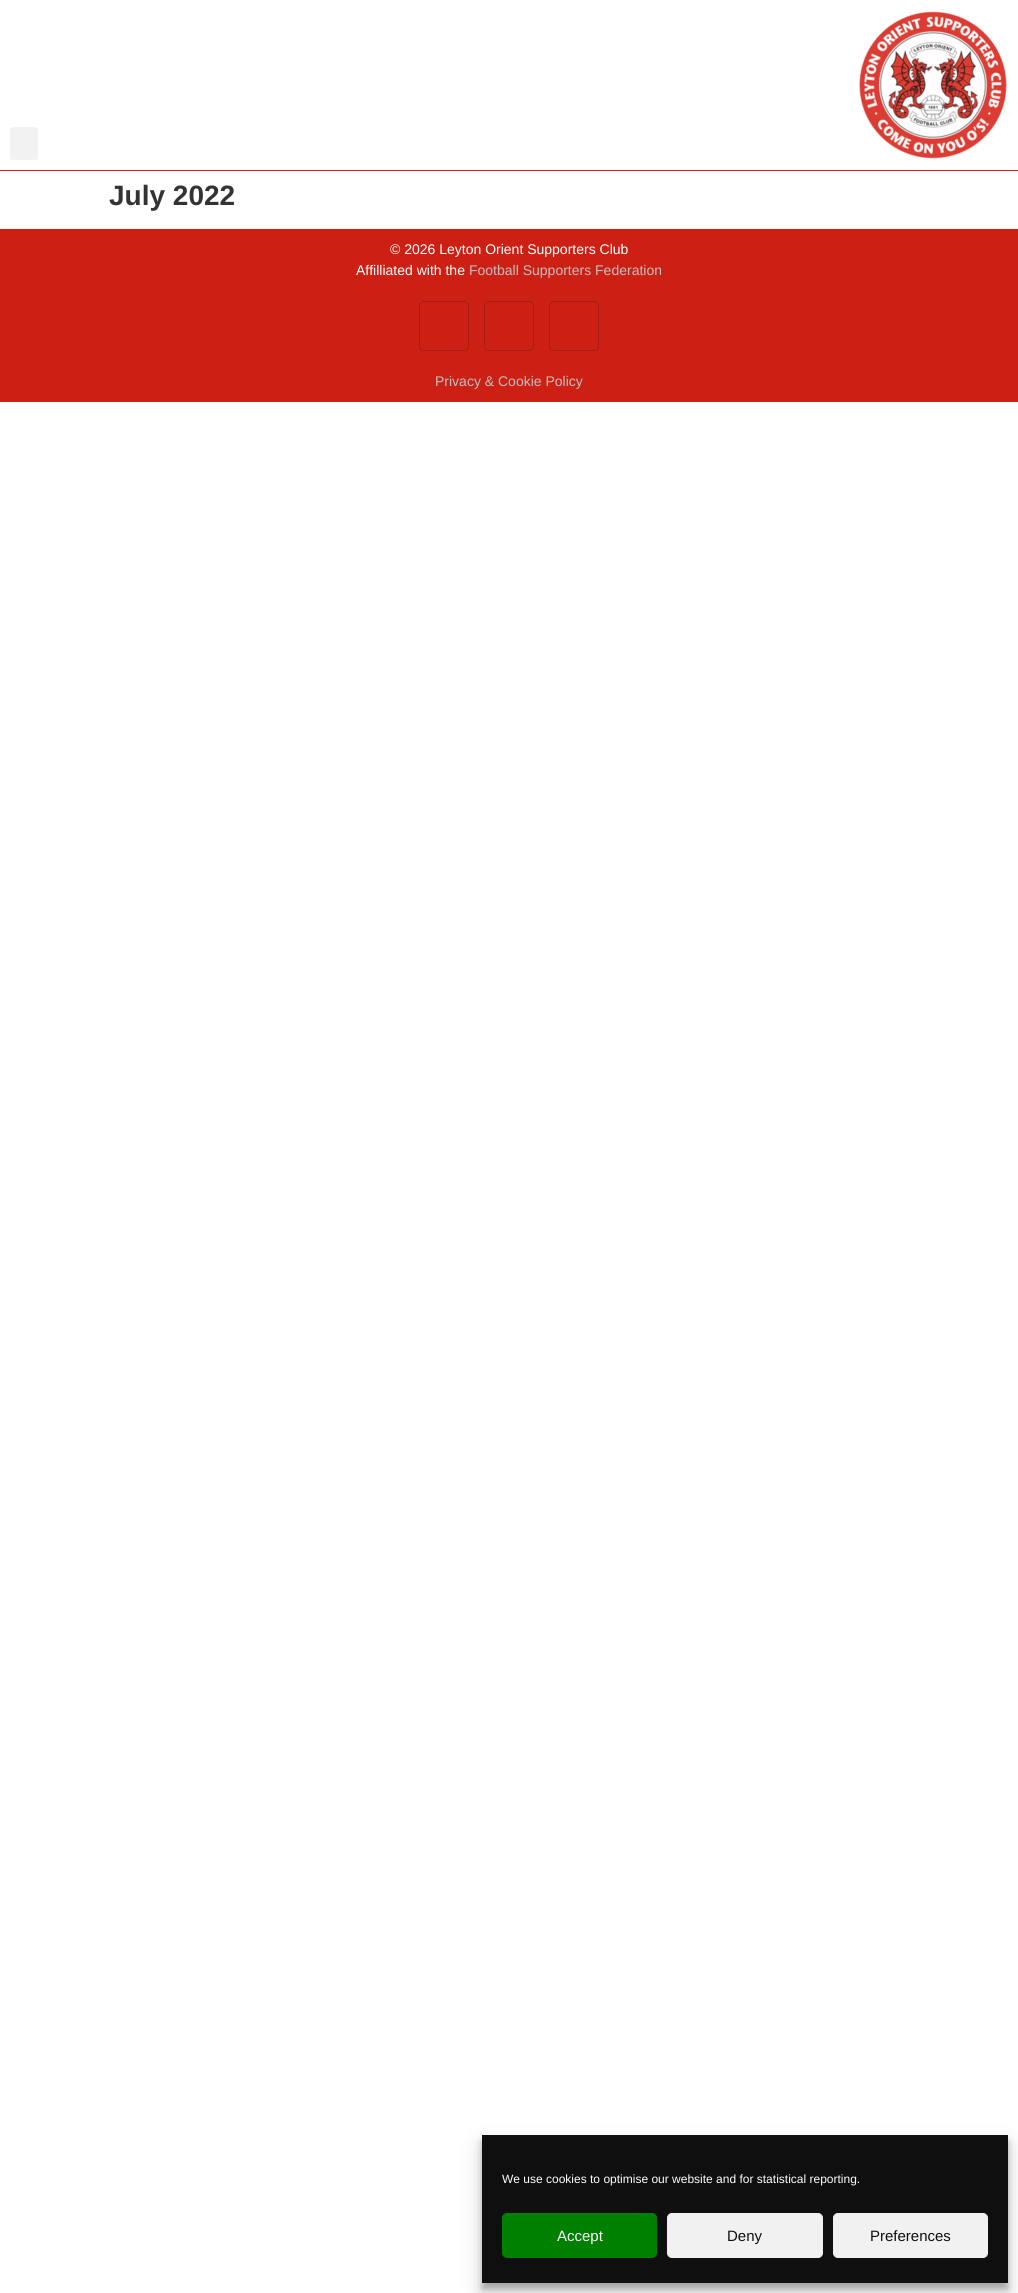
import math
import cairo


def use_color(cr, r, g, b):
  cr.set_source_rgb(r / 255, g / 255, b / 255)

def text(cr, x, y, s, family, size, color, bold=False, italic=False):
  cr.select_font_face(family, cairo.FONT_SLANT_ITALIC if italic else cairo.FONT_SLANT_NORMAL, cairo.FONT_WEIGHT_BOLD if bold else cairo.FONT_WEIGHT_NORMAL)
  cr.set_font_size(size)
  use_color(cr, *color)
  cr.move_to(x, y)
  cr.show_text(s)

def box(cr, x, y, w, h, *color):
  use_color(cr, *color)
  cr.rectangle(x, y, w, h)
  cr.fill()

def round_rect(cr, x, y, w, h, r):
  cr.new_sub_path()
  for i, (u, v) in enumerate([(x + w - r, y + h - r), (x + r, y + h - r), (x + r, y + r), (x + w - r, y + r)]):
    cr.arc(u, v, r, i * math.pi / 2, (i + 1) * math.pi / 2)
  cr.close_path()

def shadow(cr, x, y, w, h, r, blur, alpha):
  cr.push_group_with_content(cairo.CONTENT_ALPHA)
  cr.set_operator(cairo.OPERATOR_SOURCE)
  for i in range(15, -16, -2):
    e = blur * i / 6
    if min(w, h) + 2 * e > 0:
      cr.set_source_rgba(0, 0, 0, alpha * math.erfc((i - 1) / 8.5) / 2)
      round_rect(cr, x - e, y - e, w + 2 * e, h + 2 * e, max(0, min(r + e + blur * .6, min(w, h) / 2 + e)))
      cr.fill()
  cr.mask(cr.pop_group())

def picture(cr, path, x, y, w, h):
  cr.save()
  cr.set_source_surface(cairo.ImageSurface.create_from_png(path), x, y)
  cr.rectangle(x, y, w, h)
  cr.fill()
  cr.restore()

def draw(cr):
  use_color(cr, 255, 255, 255)
  cr.paint()
  box(cr, 0, 170, 1018, 1, 205, 32, 20)
  use_color(cr, 242, 242, 242)
  round_rect(cr, 10, 127, 28, 33, 3)
  cr.fill()
  picture(cr, "img_01.png", 859, 11, 148, 148)
  box(cr, 0, 229, 1018, 173, 205, 32, 20)
  round_rect(cr, 419.5, 301.5, 49, 49, 4.5)
  use_color(cr, 167, 28, 18)
  cr.set_line_width(1)
  cr.stroke()
  round_rect(cr, 484.5, 301.5, 49, 49, 4.5)
  cr.stroke()
  round_rect(cr, 549.5, 301.5, 49, 49, 4.5)
  cr.stroke()
  use_color(cr, 0, 0, 0)
  shadow(cr, 482, 2141, 526, 148, 0, 3, 0.23)
  shadow(cr, 482, 2145, 526, 148, 0, 10, 0.19)
  box(cr, 482, 2135, 526, 148, 15, 15, 15)
  use_color(cr, 0, 128, 0)
  round_rect(cr, 502.5, 2213.5, 154, 44, 4.5)
  cr.fill_preserve()
  cr.stroke()
  use_color(cr, 241, 241, 241)
  round_rect(cr, 667.5, 2213.5, 155, 44, 4.5)
  cr.fill_preserve()
  cr.stroke()
  round_rect(cr, 833.5, 2213.5, 154, 44, 4.5)
  cr.fill_preserve()
  cr.stroke()
  text(cr, 109, 205, "July 2022", "Liberation Sans", 28, (51, 51, 51), bold=True)
  text(cr, 390, 254, "© 2026 Leyton Orient Supporters Club", "Liberation Sans", 14, (255, 255, 255))
  text(cr, 356, 275, "Affilliated with the", "Liberation Sans", 14, (255, 255, 255))
  text(cr, 469, 275, "Football Supporters Federation", "Liberation Sans", 14, (192, 192, 192))
  text(cr, 435, 386, "Privacy & Cookie Policy", "Liberation Sans", 14, (192, 192, 192))
  text(cr, 502, 2183, "We use cookies to optimise our website and for statistical reporting.", "Liberation Sans", 12, (255, 255, 255))
  text(cr, 557, 2241, "Accept", "Liberation Sans", 15, (255, 255, 255))
  text(cr, 727, 2241, "Deny", "Liberation Sans", 15, (15, 15, 15))
  text(cr, 870, 2241, "Preferences", "Liberation Sans", 15, (15, 15, 15))


surface = cairo.ImageSurface(cairo.FORMAT_RGB24, 1018, 2293)
cr = cairo.Context(surface)
options = cairo.FontOptions()
options.set_hint_metrics(cairo.HINT_METRICS_OFF)
options.set_hint_style(cairo.HINT_STYLE_NONE)
cr.set_font_options(options)
cr.set_miter_limit(4)
draw(cr)
surface.write_to_png("out.png")
